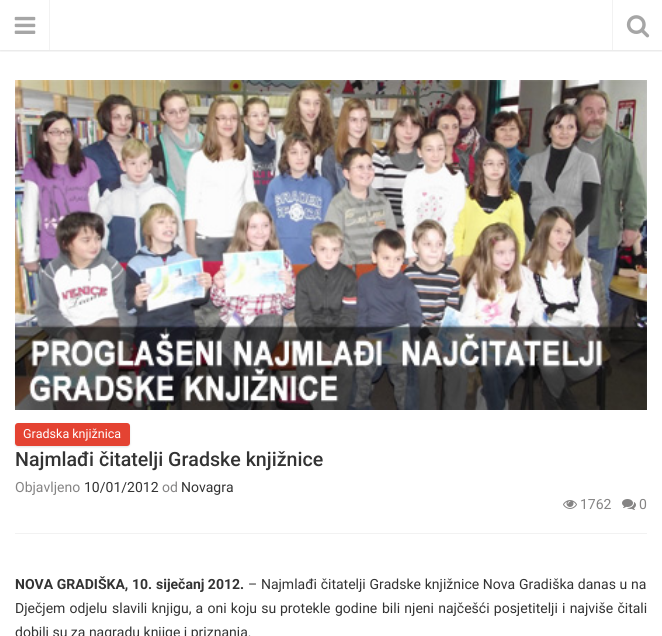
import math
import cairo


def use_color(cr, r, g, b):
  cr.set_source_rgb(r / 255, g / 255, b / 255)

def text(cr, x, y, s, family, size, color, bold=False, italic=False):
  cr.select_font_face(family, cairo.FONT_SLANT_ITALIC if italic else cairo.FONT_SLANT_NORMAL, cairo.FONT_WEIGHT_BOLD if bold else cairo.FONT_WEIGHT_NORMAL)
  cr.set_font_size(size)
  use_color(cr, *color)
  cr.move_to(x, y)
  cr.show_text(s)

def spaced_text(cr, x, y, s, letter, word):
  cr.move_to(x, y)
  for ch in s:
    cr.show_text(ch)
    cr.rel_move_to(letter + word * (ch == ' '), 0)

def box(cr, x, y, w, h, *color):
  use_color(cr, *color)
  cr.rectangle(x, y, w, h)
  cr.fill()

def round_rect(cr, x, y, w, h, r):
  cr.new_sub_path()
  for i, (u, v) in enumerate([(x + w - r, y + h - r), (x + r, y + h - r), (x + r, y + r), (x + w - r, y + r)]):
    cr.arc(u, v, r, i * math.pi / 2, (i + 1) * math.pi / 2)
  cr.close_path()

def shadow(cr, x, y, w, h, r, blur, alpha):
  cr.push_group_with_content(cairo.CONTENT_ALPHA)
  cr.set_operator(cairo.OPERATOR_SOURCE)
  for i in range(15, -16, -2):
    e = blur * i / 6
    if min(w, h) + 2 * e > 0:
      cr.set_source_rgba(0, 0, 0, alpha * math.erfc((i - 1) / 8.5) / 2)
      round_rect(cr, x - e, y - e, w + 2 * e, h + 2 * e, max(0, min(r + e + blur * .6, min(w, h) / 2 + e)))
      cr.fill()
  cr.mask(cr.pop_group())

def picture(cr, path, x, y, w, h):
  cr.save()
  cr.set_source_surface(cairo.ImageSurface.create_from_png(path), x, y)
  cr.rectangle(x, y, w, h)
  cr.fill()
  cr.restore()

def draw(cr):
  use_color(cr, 255, 255, 255)
  cr.paint()
  cr.save()
  cr.rectangle(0, 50, 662, 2)
  cr.clip()
  use_color(cr, 108, 108, 108)
  shadow(cr, 0, 1, 662, 50, 0, 1, 0.2)
  cr.restore()
  box(cr, 49, 0, 1, 50, 242, 242, 242)
  picture(cr, "img_01.png", 14, 16, 22, 18)
  box(cr, 612, 0, 1, 50, 242, 242, 242)
  picture(cr, "img_02.png", 626, 15, 24, 23)
  picture(cr, "img_03.png", 15, 80, 632, 330)
  use_color(cr, 108, 108, 108)
  shadow(cr, 15, 424, 115, 23, 3, 1, 0.2)
  use_color(cr, 228, 67, 50)
  round_rect(cr, 15, 423, 115, 23, 3)
  cr.fill()
  box(cr, 15, 533, 632, 1, 242, 242, 242)
  picture(cr, "img_04.png", 563, 500, 14, 9)
  picture(cr, "img_05.png", 622, 499, 14, 11)
  text(cr, 23, 438, "Gradska knjižnica", "Roboto", 12.5, (255, 255, 255))
  text(cr, 15, 466, "Najmlađi čitatelji Gradske knjižnice", "Roboto Medium", 19.6, (51, 51, 51))
  text(cr, 15, 492, "Objavljeno", "Roboto", 14, (133, 132, 132))
  text(cr, 84, 492, "10/01/2012", "Roboto", 14, (51, 51, 51))
  text(cr, 162, 492, "od", "Roboto", 14, (133, 132, 132))
  text(cr, 181, 492, "Novagra", "Roboto", 14, (51, 51, 51))
  text(cr, 580, 509, "1762", "Roboto", 14, (133, 132, 132))
  text(cr, 639, 509, "0", "Roboto", 14, (133, 132, 132))
  cr.select_font_face("Roboto", cairo.FONT_SLANT_NORMAL, cairo.FONT_WEIGHT_BOLD)
  use_color(cr, 51, 51, 51)
  spaced_text(cr, 15, 589, "NOVA GRADIŠKA,", 0, 0.25)
  text(cr, 132, 589, "10.", "Roboto", 14, (51, 51, 51), bold=True)
  text(cr, 156, 589, "siječanj 2012.", "Roboto", 14, (51, 51, 51), bold=True)
  cr.select_font_face("Roboto")
  spaced_text(cr, 248, 589, "– Najmlađi čitatelji Gradske knjižnice Nova Gradiška danas u na", 0, 0.25)
  spaced_text(cr, 15, 613, "Dječjem odjelu", 0, 0.75)
  spaced_text(cr, 112, 613, "slavili knjigu, a oni koju su", 0, 0.75)
  spaced_text(cr, 280, 613, "protekle godine", 0, 1)
  spaced_text(cr, 382, 613, "bili njeni najčešći posjetitelji i najviše čitali", 0, 0.75)
  text(cr, 15, 637, "dobili su za nagradu knjige i priznanja.", "Roboto", 14, (51, 51, 51))


surface = cairo.ImageSurface(cairo.FORMAT_RGB24, 662, 636)
cr = cairo.Context(surface)
options = cairo.FontOptions()
options.set_hint_metrics(cairo.HINT_METRICS_OFF)
options.set_hint_style(cairo.HINT_STYLE_NONE)
cr.set_font_options(options)
cr.set_miter_limit(4)
draw(cr)
surface.write_to_png("out.png")
